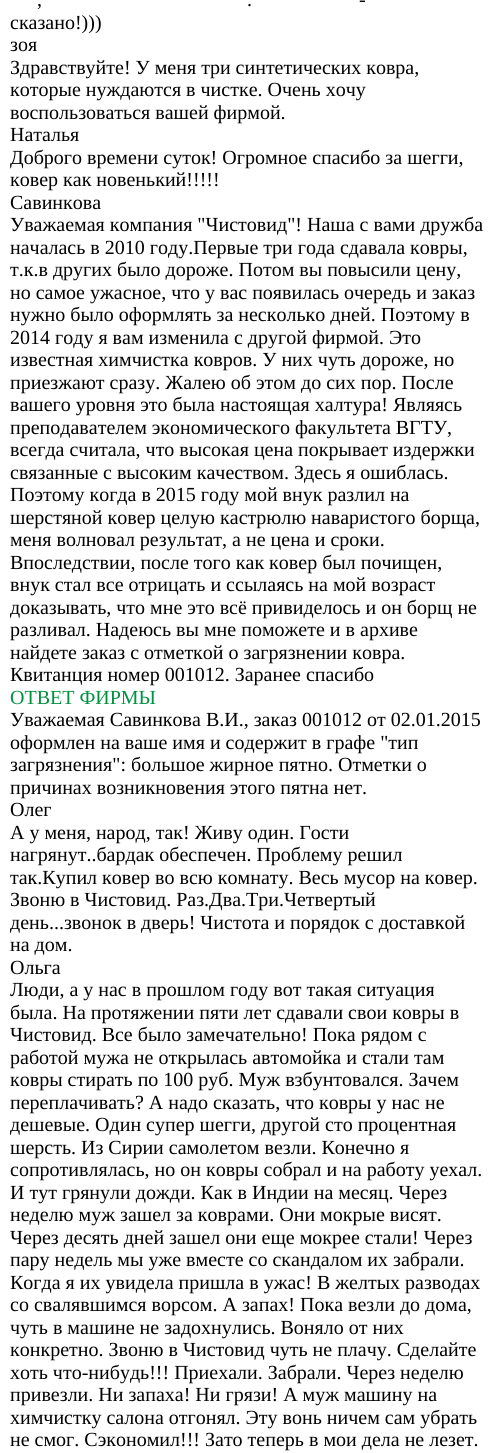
import math
import cairo


def use_color(cr, r, g, b):
  cr.set_source_rgb(r / 255, g / 255, b / 255)

def text(cr, x, y, s, family, size, color, bold=False, italic=False):
  cr.select_font_face(family, cairo.FONT_SLANT_ITALIC if italic else cairo.FONT_SLANT_NORMAL, cairo.FONT_WEIGHT_BOLD if bold else cairo.FONT_WEIGHT_NORMAL)
  cr.set_font_size(size)
  use_color(cr, *color)
  cr.move_to(x, y)
  cr.show_text(s)

def draw(cr):
  use_color(cr, 255, 255, 255)
  cr.paint()
  text(cr, 359, 6, "-", "Liberation Serif", 20, (0, 0, 0))
  text(cr, 37, 6, ",", "Liberation Serif", 20, (0, 0, 0))
  text(cr, 247, 6, ".", "Liberation Serif", 20, (0, 0, 0))
  text(cr, 10, 29, "сказано!)))", "Liberation Serif", 20, (0, 0, 0))
  text(cr, 10, 51, "зоя", "Liberation Serif", 20, (0, 0, 0))
  text(cr, 10, 74, "Здравствуйте! У меня три синтетических ковра,", "Liberation Serif", 20, (0, 0, 0))
  text(cr, 10, 96, "которые нуждаются в чистке. Очень хочу", "Liberation Serif", 20, (0, 0, 0))
  text(cr, 10, 119, "воспользоваться вашей фирмой.", "Liberation Serif", 20, (0, 0, 0))
  text(cr, 10, 141, "Наталья", "Liberation Serif", 20, (0, 0, 0))
  text(cr, 10, 164, "Доброго времени суток! Огромное спасибо за шегги,", "Liberation Serif", 20, (0, 0, 0))
  text(cr, 10, 186, "ковер как новенький!!!!!", "Liberation Serif", 20, (0, 0, 0))
  text(cr, 10, 209, "Савинкова", "Liberation Serif", 20, (0, 0, 0))
  text(cr, 10, 231, "Уважаемая компания \"Чистовид\"! Наша с вами дружба", "Liberation Serif", 20, (0, 0, 0))
  text(cr, 10, 254, "началась в 2010 году.Первые три года сдавала ковры,", "Liberation Serif", 20, (0, 0, 0))
  text(cr, 10, 276, "т.к.в других было дороже. Потом вы повысили цену,", "Liberation Serif", 20, (0, 0, 0))
  text(cr, 10, 299, "но самое ужасное, что у вас появилась очередь и заказ", "Liberation Serif", 20, (0, 0, 0))
  text(cr, 10, 321, "нужно было оформлять за несколько дней. Поэтому в", "Liberation Serif", 20, (0, 0, 0))
  text(cr, 10, 344, "2014 году я вам изменила с другой фирмой. Это", "Liberation Serif", 20, (0, 0, 0))
  text(cr, 10, 366, "известная химчистка ковров. У них чуть дороже, но", "Liberation Serif", 20, (0, 0, 0))
  text(cr, 10, 389, "приезжают сразу. Жалею об этом до сих пор. После", "Liberation Serif", 20, (0, 0, 0))
  text(cr, 10, 411, "вашего уровня это была настоящая халтура! Являясь", "Liberation Serif", 20, (0, 0, 0))
  text(cr, 10, 434, "преподавателем экономического факультета ВГТУ,", "Liberation Serif", 20, (0, 0, 0))
  text(cr, 10, 456, "всегда считала, что высокая цена покрывает издержки", "Liberation Serif", 20, (0, 0, 0))
  text(cr, 10, 479, "связанные с высоким качеством. Здесь я ошиблась.", "Liberation Serif", 20, (0, 0, 0))
  text(cr, 10, 501, "Поэтому когда в 2015 году мой внук разлил на", "Liberation Serif", 20, (0, 0, 0))
  text(cr, 10, 524, "шерстяной ковер целую кастрюлю наваристого борща,", "Liberation Serif", 20, (0, 0, 0))
  text(cr, 10, 546, "меня волновал результат, а не цена и сроки.", "Liberation Serif", 20, (0, 0, 0))
  text(cr, 10, 569, "Впоследствии, после того как ковер был почищен,", "Liberation Serif", 20, (0, 0, 0))
  text(cr, 10, 591, "внук стал все отрицать и ссылаясь на мой возраст", "Liberation Serif", 20, (0, 0, 0))
  text(cr, 10, 614, "доказывать, что мне это всё привиделось и он борщ не", "Liberation Serif", 20, (0, 0, 0))
  text(cr, 10, 636, "разливал. Надеюсь вы мне поможете и в архиве", "Liberation Serif", 20, (0, 0, 0))
  text(cr, 10, 659, "найдете заказ с отметкой о загрязнении ковра.", "Liberation Serif", 20, (0, 0, 0))
  text(cr, 10, 681, "Квитанция номер 001012. Заранее спасибо", "Liberation Serif", 20, (0, 0, 0))
  text(cr, 10, 704, "ОТВЕТ ФИРМЫ", "Liberation Serif", 20, (0, 146, 63))
  text(cr, 10, 726, "Уважаемая Савинкова В.И., заказ 001012 от 02.01.2015", "Liberation Serif", 20, (0, 0, 0))
  text(cr, 10, 749, "оформлен на ваше имя и содержит в графе \"тип", "Liberation Serif", 20, (0, 0, 0))
  text(cr, 10, 771, "загрязнения\": большое жирное пятно. Отметки о", "Liberation Serif", 20, (0, 0, 0))
  text(cr, 10, 794, "причинах возникновения этого пятна нет.", "Liberation Serif", 20, (0, 0, 0))
  text(cr, 10, 816, "Олег", "Liberation Serif", 20, (0, 0, 0))
  text(cr, 10, 839, "А у меня, народ, так! Живу один. Гости", "Liberation Serif", 20, (0, 0, 0))
  text(cr, 10, 861, "нагрянут..бардак обеспечен. Проблему решил", "Liberation Serif", 20, (0, 0, 0))
  text(cr, 10, 884, "так.Купил ковер во всю комнату. Весь мусор на ковер.", "Liberation Serif", 20, (0, 0, 0))
  text(cr, 10, 906, "Звоню в Чистовид. Раз.Два.Три.Четвертый", "Liberation Serif", 20, (0, 0, 0))
  text(cr, 10, 929, "день...звонок в дверь! Чистота и порядок с доставкой", "Liberation Serif", 20, (0, 0, 0))
  text(cr, 10, 951, "на дом.", "Liberation Serif", 20, (0, 0, 0))
  text(cr, 10, 974, "Ольга", "Liberation Serif", 20, (0, 0, 0))
  text(cr, 10, 996, "Люди, а у нас в прошлом году вот такая ситуация", "Liberation Serif", 20, (0, 0, 0))
  text(cr, 10, 1019, "была. На протяжении пяти лет сдавали свои ковры в", "Liberation Serif", 20, (0, 0, 0))
  text(cr, 10, 1041, "Чистовид. Все было замечательно! Пока рядом с", "Liberation Serif", 20, (0, 0, 0))
  text(cr, 10, 1064, "работой мужа не открылась автомойка и стали там", "Liberation Serif", 20, (0, 0, 0))
  text(cr, 10, 1086, "ковры стирать по 100 руб. Муж взбунтовался. Зачем", "Liberation Serif", 20, (0, 0, 0))
  text(cr, 10, 1109, "переплачивать? А надо сказать, что ковры у нас не", "Liberation Serif", 20, (0, 0, 0))
  text(cr, 10, 1131, "дешевые. Один супер шегги, другой сто процентная", "Liberation Serif", 20, (0, 0, 0))
  text(cr, 10, 1154, "шерсть. Из Сирии самолетом везли. Конечно я", "Liberation Serif", 20, (0, 0, 0))
  text(cr, 10, 1176, "сопротивлялась, но он ковры собрал и на работу уехал.", "Liberation Serif", 20, (0, 0, 0))
  text(cr, 10, 1199, "И тут грянули дожди. Как в Индии на месяц. Через", "Liberation Serif", 20, (0, 0, 0))
  text(cr, 10, 1221, "неделю муж зашел за коврами. Они мокрые висят.", "Liberation Serif", 20, (0, 0, 0))
  text(cr, 10, 1244, "Через десять дней зашел они еще мокрее стали! Через", "Liberation Serif", 20, (0, 0, 0))
  text(cr, 10, 1266, "пару недель мы уже вместе со скандалом их забрали.", "Liberation Serif", 20, (0, 0, 0))
  text(cr, 10, 1289, "Когда я их увидела пришла в ужас! В желтых разводах", "Liberation Serif", 20, (0, 0, 0))
  text(cr, 10, 1311, "со свалявшимся ворсом. А запах! Пока везли до дома,", "Liberation Serif", 20, (0, 0, 0))
  text(cr, 10, 1334, "чуть в машине не задохнулись. Воняло от них", "Liberation Serif", 20, (0, 0, 0))
  text(cr, 10, 1356, "конкретно. Звоню в Чистовид чуть не плачу. Сделайте", "Liberation Serif", 20, (0, 0, 0))
  text(cr, 10, 1379, "хоть что-нибудь!!! Приехали. Забрали. Через неделю", "Liberation Serif", 20, (0, 0, 0))
  text(cr, 10, 1401, "привезли. Ни запаха! Ни грязи! А муж машину на", "Liberation Serif", 20, (0, 0, 0))
  text(cr, 10, 1424, "химчистку салона отгонял. Эту вонь ничем сам убрать", "Liberation Serif", 20, (0, 0, 0))
  text(cr, 10, 1446, "не смог. Сэкономил!!! Зато теперь в мои дела не лезет.", "Liberation Serif", 20, (0, 0, 0))


surface = cairo.ImageSurface(cairo.FORMAT_RGB24, 494, 1453)
cr = cairo.Context(surface)
options = cairo.FontOptions()
options.set_hint_metrics(cairo.HINT_METRICS_OFF)
options.set_hint_style(cairo.HINT_STYLE_NONE)
cr.set_font_options(options)
cr.set_miter_limit(4)
draw(cr)
surface.write_to_png("out.png")
